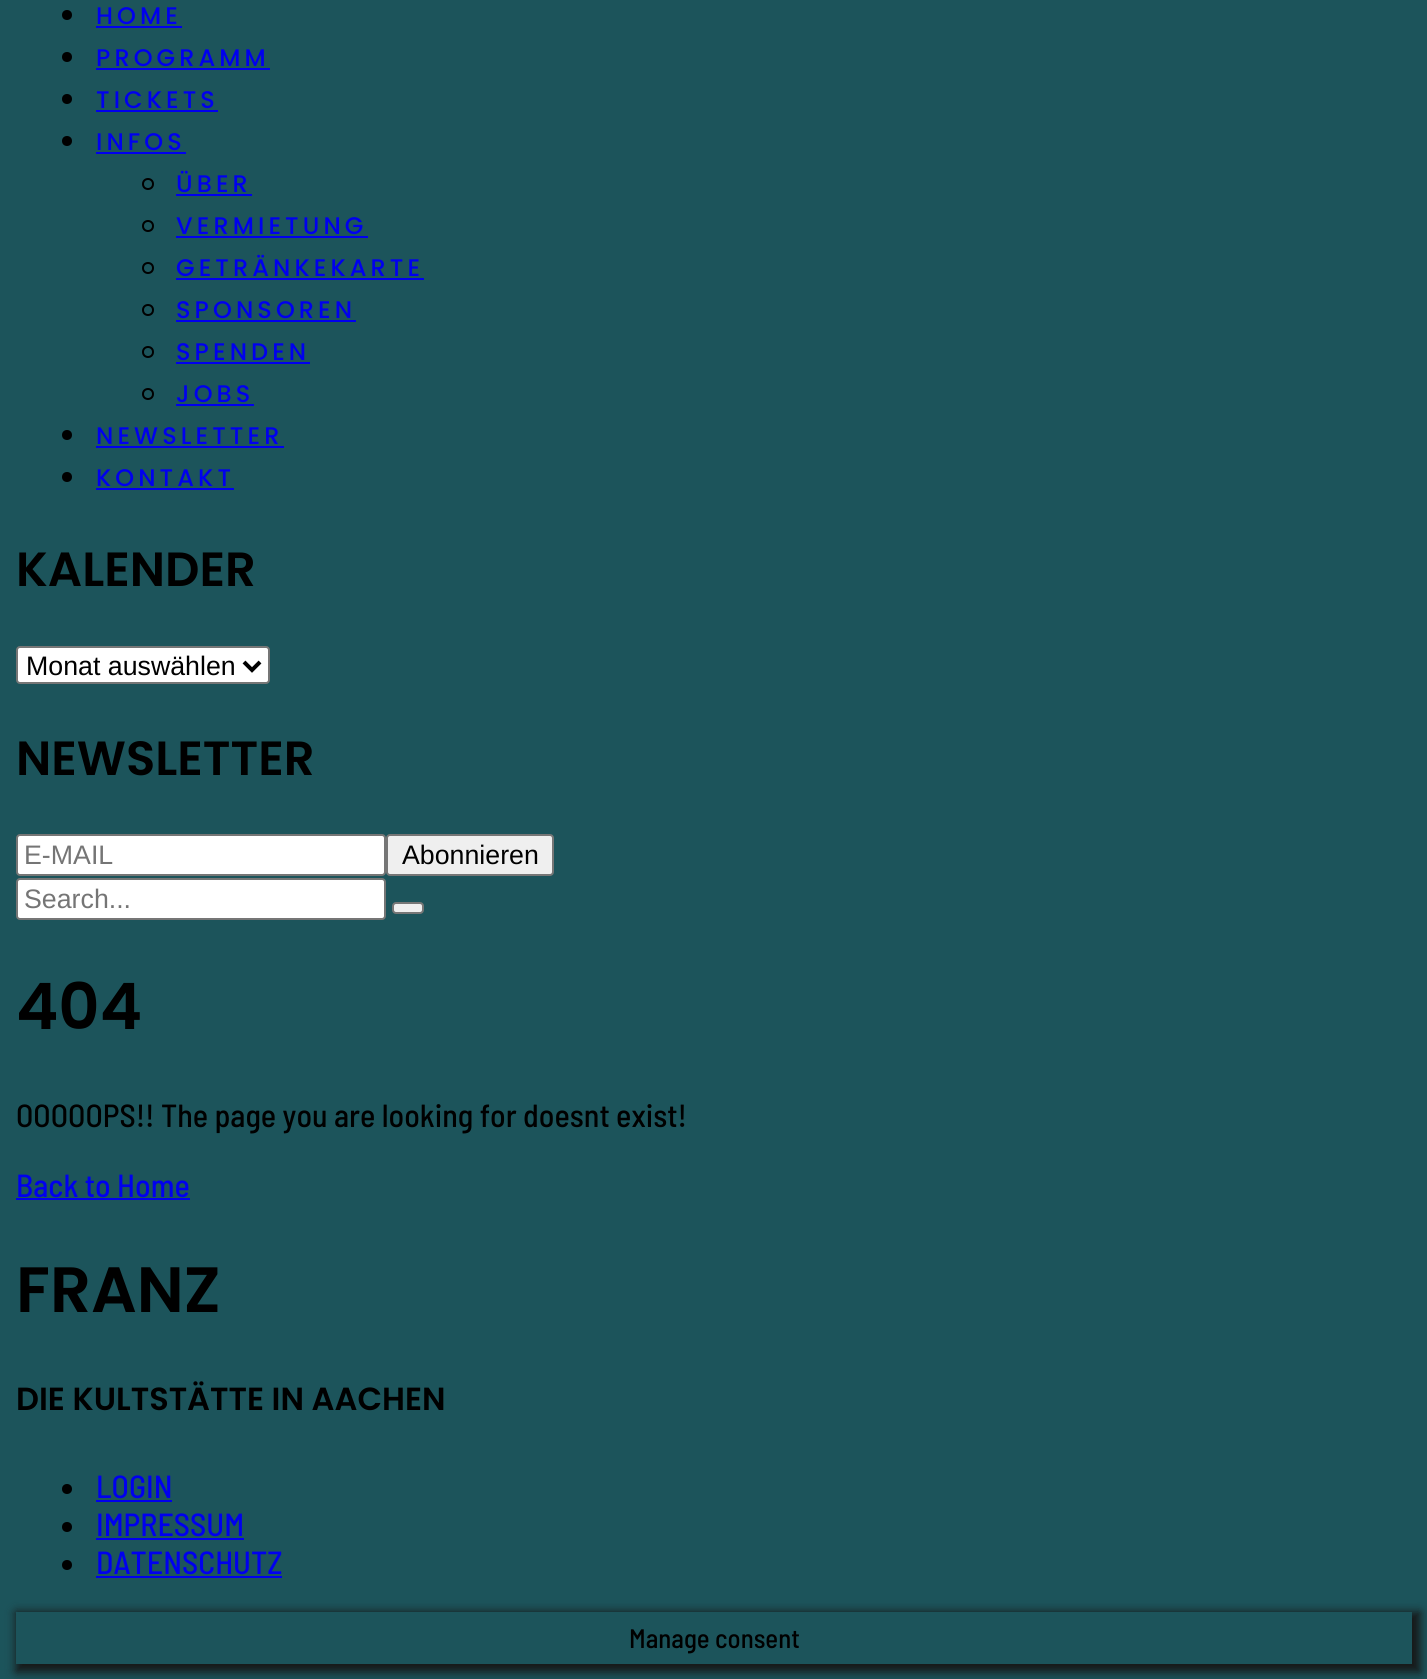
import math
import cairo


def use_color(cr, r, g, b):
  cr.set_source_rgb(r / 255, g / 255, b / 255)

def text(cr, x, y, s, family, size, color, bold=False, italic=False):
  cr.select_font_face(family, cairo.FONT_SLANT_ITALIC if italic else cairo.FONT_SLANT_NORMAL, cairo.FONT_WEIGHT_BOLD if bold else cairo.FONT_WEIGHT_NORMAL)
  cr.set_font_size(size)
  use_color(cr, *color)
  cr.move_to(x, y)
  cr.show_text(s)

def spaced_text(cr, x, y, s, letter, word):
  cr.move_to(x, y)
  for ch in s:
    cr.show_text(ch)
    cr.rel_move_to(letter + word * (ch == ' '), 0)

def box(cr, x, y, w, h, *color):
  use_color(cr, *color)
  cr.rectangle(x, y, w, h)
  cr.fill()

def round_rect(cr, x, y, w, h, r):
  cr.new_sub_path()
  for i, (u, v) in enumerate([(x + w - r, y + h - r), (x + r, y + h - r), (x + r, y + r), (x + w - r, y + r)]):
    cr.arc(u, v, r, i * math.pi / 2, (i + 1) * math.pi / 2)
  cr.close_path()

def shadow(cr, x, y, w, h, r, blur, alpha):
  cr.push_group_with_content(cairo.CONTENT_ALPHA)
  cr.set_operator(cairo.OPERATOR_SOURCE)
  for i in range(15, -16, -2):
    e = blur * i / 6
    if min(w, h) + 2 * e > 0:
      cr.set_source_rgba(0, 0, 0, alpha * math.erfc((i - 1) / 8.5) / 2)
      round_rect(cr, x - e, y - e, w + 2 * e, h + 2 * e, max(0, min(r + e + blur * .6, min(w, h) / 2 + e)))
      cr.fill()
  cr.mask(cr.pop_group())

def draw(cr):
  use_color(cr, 28, 84, 91)
  cr.paint()
  use_color(cr, 0, 0, 0)
  cr.arc(67, 15, 5, 0, 2 * math.pi)
  cr.fill()
  box(cr, 96, 26, 86, 2, 0, 0, 238)
  use_color(cr, 0, 0, 0)
  cr.arc(67, 57, 5, 0, 2 * math.pi)
  cr.fill()
  box(cr, 96, 68, 174, 2, 0, 0, 238)
  use_color(cr, 0, 0, 0)
  cr.arc(67, 99, 5, 0, 2 * math.pi)
  cr.fill()
  box(cr, 96, 110, 122, 2, 0, 0, 238)
  use_color(cr, 0, 0, 0)
  cr.arc(67, 141, 5, 0, 2 * math.pi)
  cr.fill()
  box(cr, 96, 152, 90, 2, 0, 0, 238)
  cr.arc(148, 184, 5, 0, 2 * math.pi)
  use_color(cr, 0, 0, 0)
  cr.stroke()
  box(cr, 176, 194, 76, 2, 0, 0, 238)
  cr.arc(148, 226, 5, 0, 2 * math.pi)
  use_color(cr, 0, 0, 0)
  cr.stroke()
  box(cr, 176, 236, 192, 2, 0, 0, 238)
  cr.arc(148, 268, 5, 0, 2 * math.pi)
  use_color(cr, 0, 0, 0)
  cr.stroke()
  box(cr, 176, 278, 248, 2, 0, 0, 238)
  cr.arc(148, 310, 5, 0, 2 * math.pi)
  use_color(cr, 0, 0, 0)
  cr.stroke()
  box(cr, 176, 320, 180, 2, 0, 0, 238)
  cr.arc(148, 352, 5, 0, 2 * math.pi)
  use_color(cr, 0, 0, 0)
  cr.stroke()
  box(cr, 176, 362, 134, 2, 0, 0, 238)
  cr.arc(148, 394, 5, 0, 2 * math.pi)
  use_color(cr, 0, 0, 0)
  cr.stroke()
  box(cr, 176, 404, 78, 2, 0, 0, 238)
  use_color(cr, 0, 0, 0)
  cr.arc(67, 435, 5, 0, 2 * math.pi)
  cr.fill()
  box(cr, 96, 446, 188, 2, 0, 0, 238)
  use_color(cr, 0, 0, 0)
  cr.arc(67, 477, 5, 0, 2 * math.pi)
  cr.fill()
  box(cr, 96, 488, 138, 2, 0, 0, 238)
  use_color(cr, 255, 255, 255)
  round_rect(cr, 17, 647, 252, 36, 3)
  cr.fill_preserve()
  use_color(cr, 118, 118, 118)
  cr.stroke()
  cr.new_path()
  cr.move_to(244, 662)
  cr.line_to(252, 670)
  cr.line_to(260, 662)
  use_color(cr, 0, 0, 0)
  cr.set_line_width(4)
  cr.stroke()
  use_color(cr, 255, 255, 255)
  round_rect(cr, 17, 835, 368, 40, 3)
  cr.fill_preserve()
  use_color(cr, 118, 118, 118)
  cr.set_line_width(2)
  cr.stroke()
  use_color(cr, 239, 239, 239)
  round_rect(cr, 387, 835, 166, 40, 3)
  cr.fill_preserve()
  use_color(cr, 118, 118, 118)
  cr.stroke()
  use_color(cr, 255, 255, 255)
  round_rect(cr, 17, 879, 368, 40, 3)
  cr.fill_preserve()
  use_color(cr, 118, 118, 118)
  cr.stroke()
  use_color(cr, 239, 239, 239)
  round_rect(cr, 393, 903, 30, 10, 3)
  cr.fill_preserve()
  use_color(cr, 118, 118, 118)
  cr.stroke()
  box(cr, 16, 1198, 174, 2, 0, 0, 238)
  use_color(cr, 0, 0, 0)
  cr.arc(67, 1489, 5, 0, 2 * math.pi)
  cr.fill()
  box(cr, 96, 1500, 76, 2, 0, 0, 238)
  use_color(cr, 0, 0, 0)
  cr.arc(67, 1527, 5, 0, 2 * math.pi)
  cr.fill()
  box(cr, 96, 1538, 148, 2, 0, 0, 238)
  use_color(cr, 0, 0, 0)
  cr.arc(67, 1565, 5, 0, 2 * math.pi)
  cr.fill()
  box(cr, 96, 1576, 186, 2, 0, 0, 238)
  cr.save()
  cr.set_fill_rule(cairo.FILL_RULE_EVEN_ODD)
  cr.new_path()
  cr.move_to(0, 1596)
  cr.line_to(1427, 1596)
  cr.line_to(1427, 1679)
  cr.line_to(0, 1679)
  cr.close_path()
  cr.move_to(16, 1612)
  cr.line_to(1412, 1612)
  cr.line_to(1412, 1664)
  cr.line_to(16, 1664)
  cr.close_path()
  cr.clip()
  use_color(cr, 22, 22, 22)
  shadow(cr, 16, 1612, 1404, 60, 0, 5, 1)
  cr.restore()
  cr.select_font_face("Poppins Medium")
  cr.set_font_size(24)
  spaced_text(cr, 96, 24, "HOME", 4.1, 0)
  spaced_text(cr, 96, 66, "PROGRAMM", 4.1, 0)
  spaced_text(cr, 96, 108, "TICKETS", 4.1, 0)
  spaced_text(cr, 96, 150, "INFOS", 4.1, 0)
  spaced_text(cr, 176, 192, "ÜBER", 4.1, 0)
  spaced_text(cr, 176, 234, "VERMIETUNG", 4.1, 0)
  spaced_text(cr, 176, 276, "GETRÄNKEKARTE", 4.1, 0)
  spaced_text(cr, 176, 318, "SPONSOREN", 4.1, 0)
  spaced_text(cr, 176, 360, "SPENDEN", 4.1, 0)
  spaced_text(cr, 176, 402, "JOBS", 4.1, 0)
  spaced_text(cr, 96, 444, "NEWSLETTER", 4.1, 0)
  spaced_text(cr, 96, 486, "KONTAKT", 4.1, 0)
  text(cr, 16, 586, "KALENDER", "Poppins SemiBold", 48, (0, 0, 0))
  text(cr, 26, 675, "Monat auswählen", "Liberation Sans", 26.75, (0, 0, 0))
  text(cr, 16, 775, "NEWSLETTER", "Poppins SemiBold", 48, (0, 0, 0))
  text(cr, 24, 864, "E-MAIL", "Liberation Sans", 26.75, (117, 117, 117))
  text(cr, 402, 864, "Abonnieren", "Liberation Sans", 26.75, (0, 0, 0))
  text(cr, 24, 908, "Search...", "Liberation Sans", 26.75, (117, 117, 117))
  text(cr, 16, 1029, "404", "Poppins SemiBold", 64, (0, 0, 0))
  text(cr, 16, 1127, "OOOOOPS!! The page you are looking for doesnt exist!", "Barlow Semi Condensed Medium", 32, (0, 0, 0))
  text(cr, 16, 1197, "Back to Home", "Barlow Semi Condensed Medium", 32, (0, 0, 238))
  text(cr, 16, 1312, "FRANZ", "Poppins SemiBold", 64, (0, 0, 0))
  text(cr, 16, 1410, "DIE KULTSTÄTTE IN AACHEN", "Poppins SemiBold", 32, (0, 0, 0))
  text(cr, 96, 1498, "LOGIN", "Barlow Semi Condensed Medium", 32, (0, 0, 238))
  text(cr, 96, 1536, "IMPRESSUM", "Barlow Semi Condensed Medium", 32, (0, 0, 238))
  text(cr, 96, 1574, "DATENSCHUTZ", "Barlow Semi Condensed Medium", 32, (0, 0, 238))
  text(cr, 629, 1648, "Manage consent", "Barlow Semi Condensed Medium", 26.75, (0, 0, 0))


surface = cairo.ImageSurface(cairo.FORMAT_RGB24, 1427, 1679)
cr = cairo.Context(surface)
options = cairo.FontOptions()
options.set_hint_metrics(cairo.HINT_METRICS_OFF)
options.set_hint_style(cairo.HINT_STYLE_NONE)
cr.set_font_options(options)
cr.set_miter_limit(4)
draw(cr)
surface.write_to_png("out.png")
